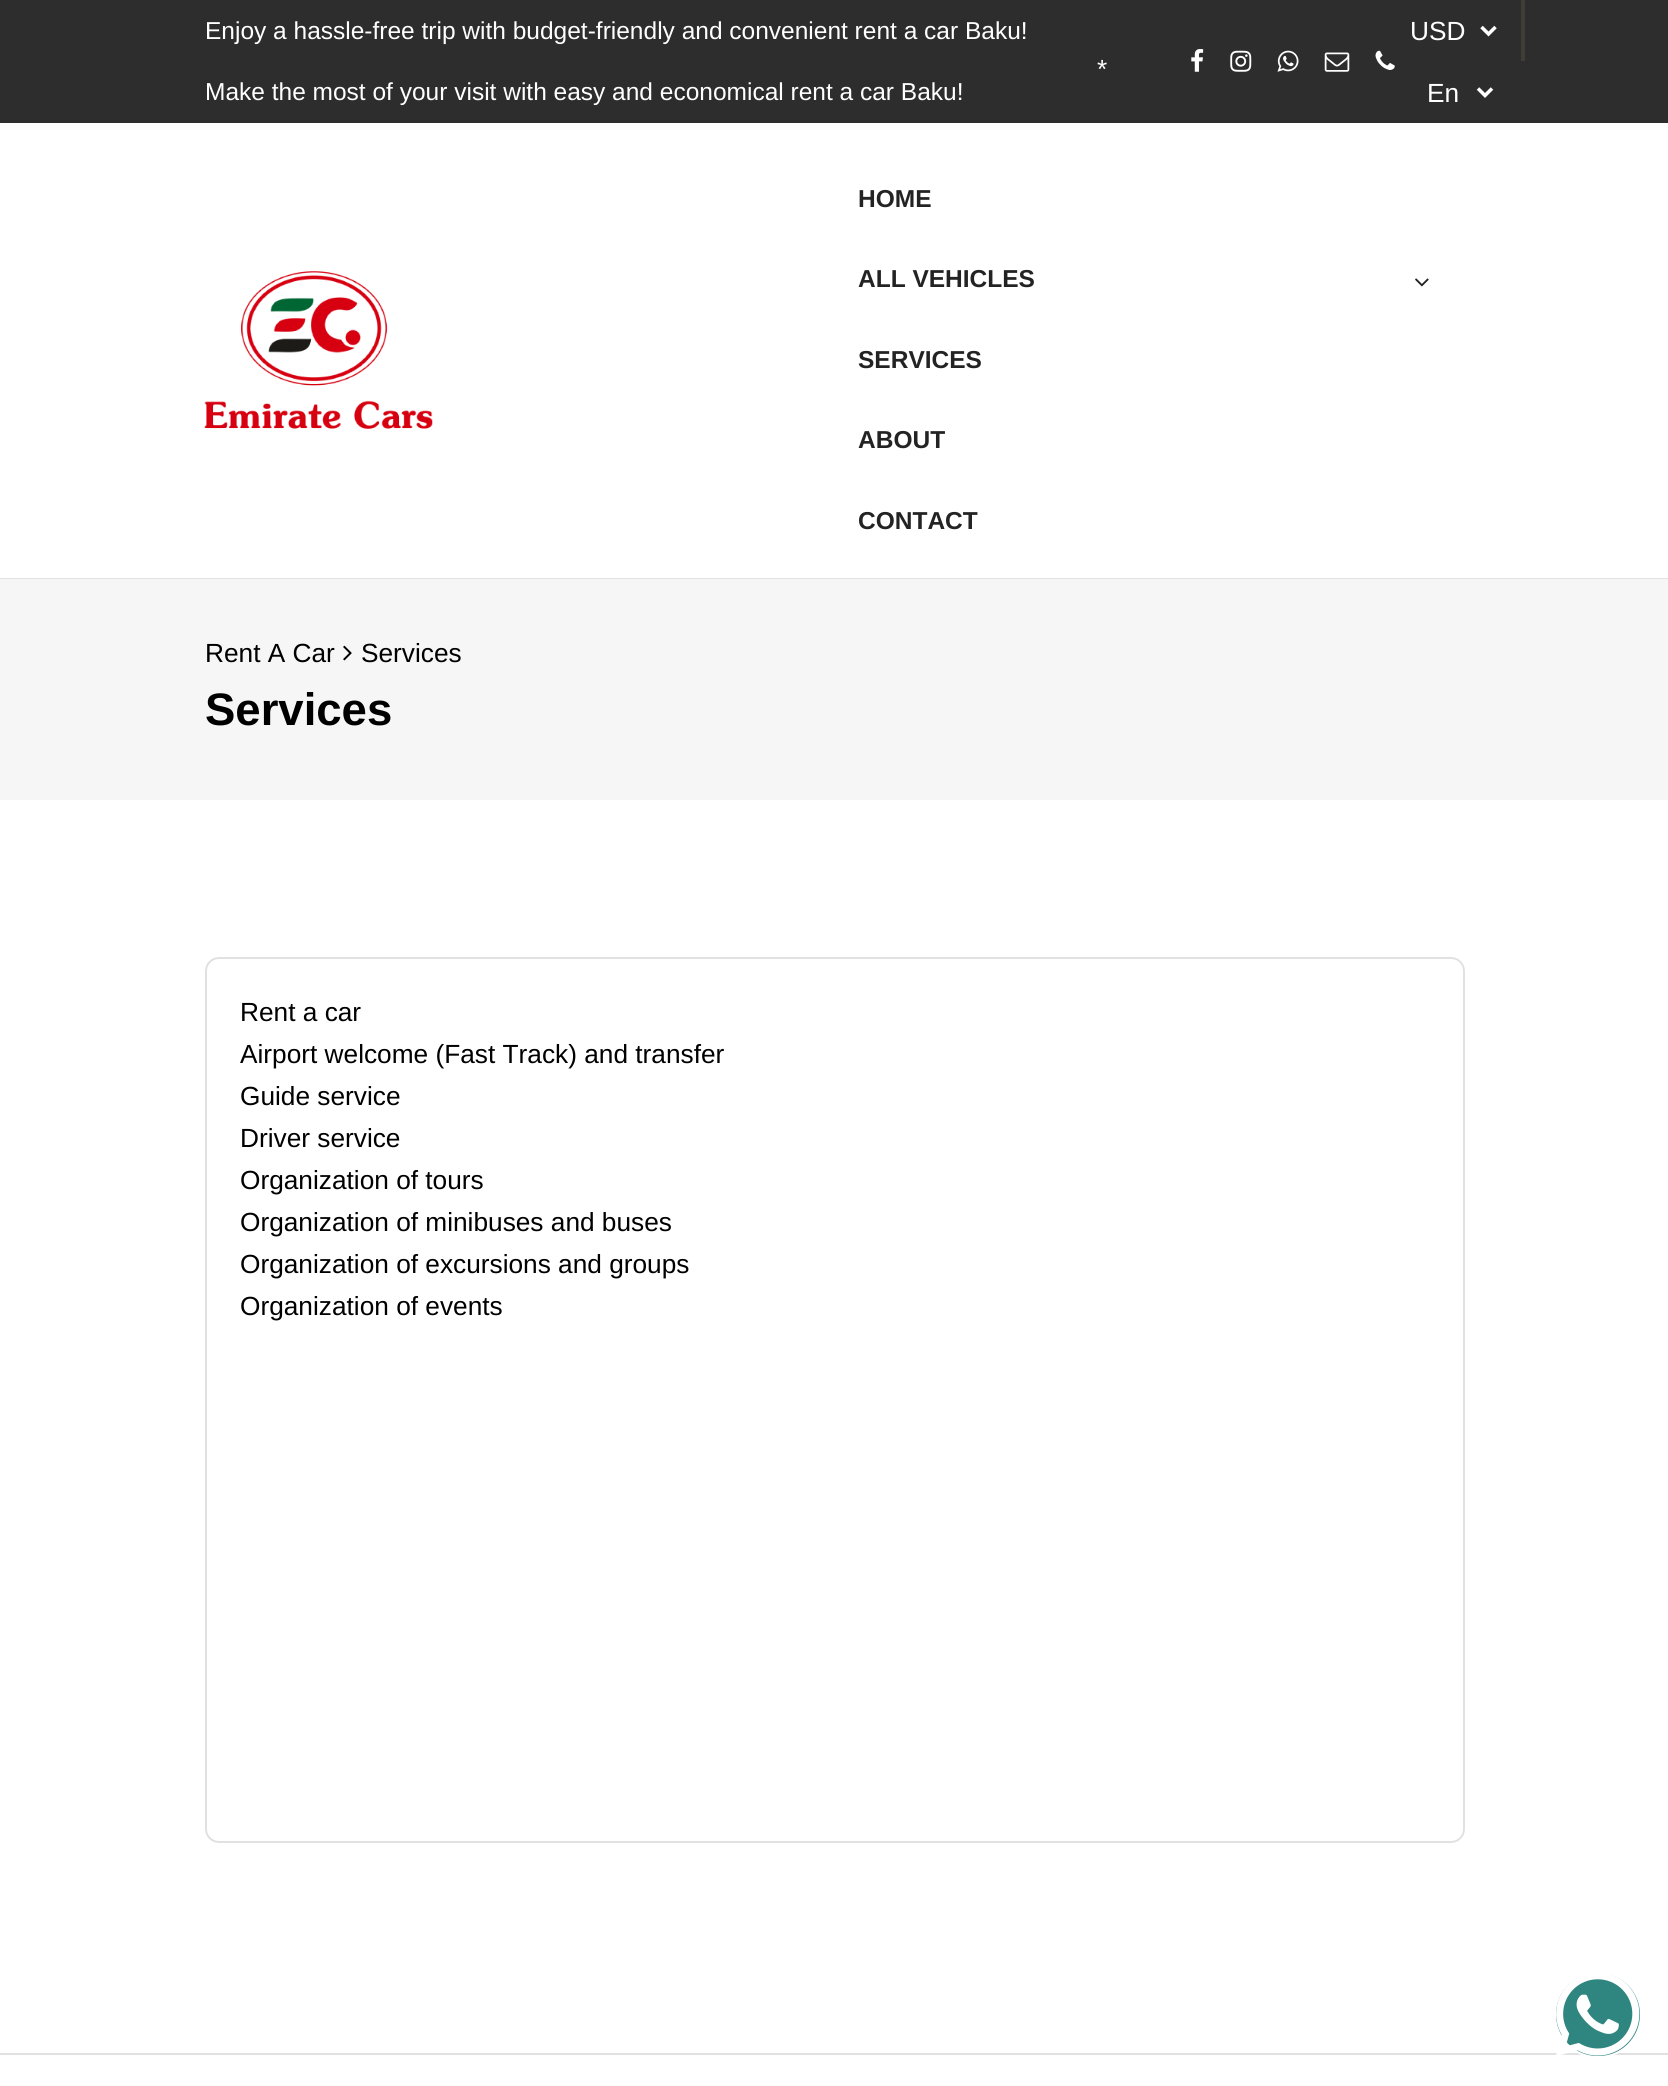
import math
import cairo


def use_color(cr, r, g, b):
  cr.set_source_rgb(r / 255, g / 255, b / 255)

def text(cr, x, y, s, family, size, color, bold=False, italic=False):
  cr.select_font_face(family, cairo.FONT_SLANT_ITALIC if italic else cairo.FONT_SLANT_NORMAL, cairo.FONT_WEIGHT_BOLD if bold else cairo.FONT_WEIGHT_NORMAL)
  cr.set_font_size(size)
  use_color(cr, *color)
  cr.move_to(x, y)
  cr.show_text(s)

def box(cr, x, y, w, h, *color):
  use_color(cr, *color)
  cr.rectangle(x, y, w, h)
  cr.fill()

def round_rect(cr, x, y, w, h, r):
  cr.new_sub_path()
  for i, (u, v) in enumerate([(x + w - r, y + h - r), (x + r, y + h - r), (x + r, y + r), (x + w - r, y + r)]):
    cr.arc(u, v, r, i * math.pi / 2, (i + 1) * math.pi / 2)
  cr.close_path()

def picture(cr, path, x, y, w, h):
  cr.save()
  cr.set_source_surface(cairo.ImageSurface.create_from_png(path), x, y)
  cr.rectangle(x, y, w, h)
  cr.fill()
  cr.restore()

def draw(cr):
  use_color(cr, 255, 255, 255)
  cr.paint()
  box(cr, 0, 578, 1668, 1, 225, 225, 225)
  box(cr, 0, 0, 1668, 123, 45, 45, 45)
  picture(cr, "img_01.png", 1191, 49, 13, 23)
  picture(cr, "img_02.png", 1230, 50, 22, 22)
  picture(cr, "img_03.png", 1277, 50, 22, 22)
  picture(cr, "img_04.png", 1324, 52, 26, 20)
  picture(cr, "img_05.png", 1375, 50, 20, 20)
  box(cr, 1521, 0, 4, 61, 66, 60, 55)
  cr.new_path()
  cr.move_to(1481.5, 27)
  cr.line_to(1488.5, 34)
  cr.line_to(1495.5, 27)
  use_color(cr, 255, 255, 255)
  cr.set_line_width(3.5)
  cr.stroke()
  cr.new_path()
  cr.move_to(1478, 88.5)
  cr.line_to(1485, 95.5)
  cr.line_to(1492, 88.5)
  cr.stroke()
  picture(cr, "img_06.png", 204, 271, 229, 158)
  picture(cr, "img_07.png", 1415, 278, 14, 9)
  box(cr, 0, 579, 1668, 221, 246, 246, 246)
  picture(cr, "img_08.png", 343, 645, 9, 16)
  round_rect(cr, 206, 958, 1258, 884, 13)
  use_color(cr, 225, 225, 225)
  cr.set_line_width(2)
  cr.stroke()
  box(cr, 0, 2053, 1668, 2, 225, 225, 225)
  use_color(cr, 47, 134, 128)
  round_rect(cr, 1555, 1972, 86, 85, 42.5)
  cr.fill_preserve()
  use_color(cr, 255, 255, 255)
  cr.stroke()
  picture(cr, "img_09.png", 1556, 1973, 84, 83)
  text(cr, 205, 39, "Enjoy a hassle-free trip with budget-friendly and convenient rent a car Baku!", "Liberation Sans", 24.5, (255, 255, 255))
  text(cr, 205, 100, "Make the most of your visit with easy and economical rent a car Baku!", "Liberation Sans", 24.5, (255, 255, 255))
  text(cr, 1097, 78, "*", "Liberation Sans", 26.25, (255, 255, 255))
  text(cr, 1410, 40, "USD", "Liberation Sans", 26.25, (255, 255, 255))
  text(cr, 1427, 102, "En", "Liberation Sans", 26.25, (255, 255, 255))
  text(cr, 858, 207, "HOME", "Liberation Sans", 24.5, (35, 35, 35), bold=True)
  text(cr, 858, 287, "ALL VEHICLES", "Liberation Sans", 24.5, (35, 35, 35), bold=True)
  text(cr, 858, 368, "SERVICES", "Liberation Sans", 24.5, (35, 35, 35), bold=True)
  text(cr, 858, 448, "ABOUT", "Liberation Sans", 24.5, (35, 35, 35), bold=True)
  text(cr, 858, 529, "CONTACT", "Liberation Sans", 24.5, (35, 35, 35), bold=True)
  text(cr, 205, 662, "Rent A Car", "Liberation Sans", 26.25, (0, 0, 0))
  text(cr, 361, 662, "Services", "Liberation Sans", 26.25, (0, 0, 0))
  text(cr, 205, 725, "Services", "Liberation Sans", 45.5, (0, 0, 0), bold=True)
  text(cr, 240, 1021, "Rent a car", "Liberation Sans", 26.25, (0, 0, 0))
  text(cr, 240, 1063, "Airport welcome (Fast Track) and transfer", "Liberation Sans", 26.25, (0, 0, 0))
  text(cr, 240, 1105, "Guide service", "Liberation Sans", 26.25, (0, 0, 0))
  text(cr, 240, 1147, "Driver service", "Liberation Sans", 26.25, (0, 0, 0))
  text(cr, 240, 1189, "Organization of tours", "Liberation Sans", 26.25, (0, 0, 0))
  text(cr, 240, 1231, "Organization of minibuses and buses", "Liberation Sans", 26.25, (0, 0, 0))
  text(cr, 240, 1273, "Organization of excursions and groups", "Liberation Sans", 26.25, (0, 0, 0))
  text(cr, 240, 1315, "Organization of events", "Liberation Sans", 26.25, (0, 0, 0))


surface = cairo.ImageSurface(cairo.FORMAT_RGB24, 1668, 2086)
cr = cairo.Context(surface)
options = cairo.FontOptions()
options.set_hint_metrics(cairo.HINT_METRICS_OFF)
options.set_hint_style(cairo.HINT_STYLE_NONE)
cr.set_font_options(options)
cr.set_miter_limit(4)
draw(cr)
surface.write_to_png("out.png")
